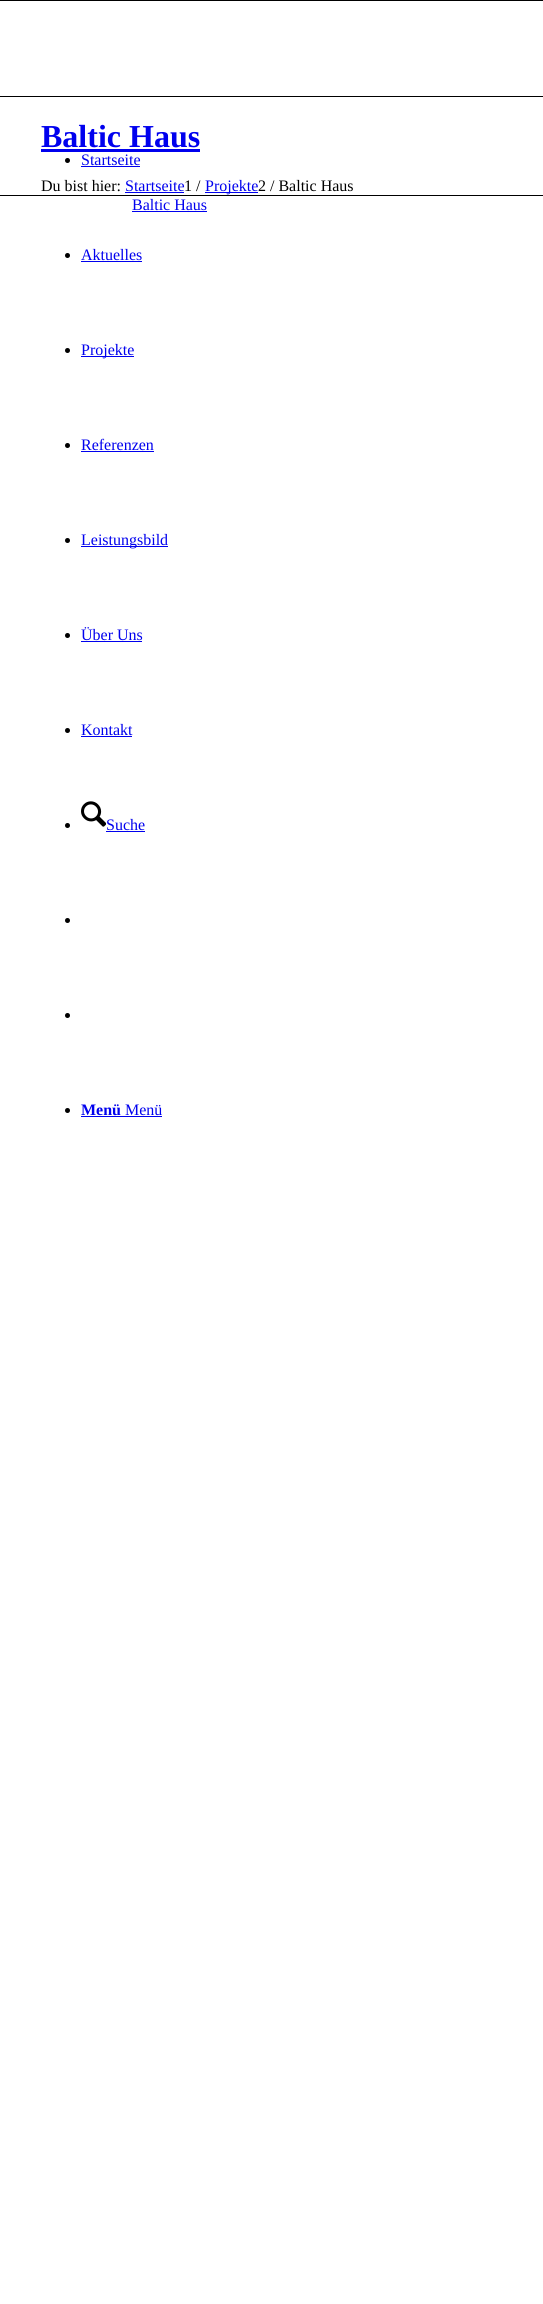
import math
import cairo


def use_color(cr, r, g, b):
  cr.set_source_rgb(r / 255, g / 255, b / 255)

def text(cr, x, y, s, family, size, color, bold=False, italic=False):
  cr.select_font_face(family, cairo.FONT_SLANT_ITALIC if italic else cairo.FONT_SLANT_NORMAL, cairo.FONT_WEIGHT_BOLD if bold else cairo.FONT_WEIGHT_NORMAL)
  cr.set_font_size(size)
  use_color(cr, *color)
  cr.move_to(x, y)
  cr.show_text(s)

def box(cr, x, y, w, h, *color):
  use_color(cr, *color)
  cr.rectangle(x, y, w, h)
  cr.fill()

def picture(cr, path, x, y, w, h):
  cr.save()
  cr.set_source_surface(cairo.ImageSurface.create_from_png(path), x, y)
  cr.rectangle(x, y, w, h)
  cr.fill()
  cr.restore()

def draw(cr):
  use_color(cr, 255, 255, 255)
  cr.paint()
  box(cr, 0, 96, 543, 1, 0, 0, 0)
  box(cr, 41, 149, 159, 3, 0, 0, 238)
  box(cr, 125, 192, 59, 1, 0, 0, 238)
  box(cr, 205, 192, 53, 1, 0, 0, 238)
  box(cr, 0, 195, 543, 1, 0, 0, 0)
  box(cr, 132, 211, 75, 1, 0, 0, 238)
  box(cr, 0, 0, 543, 1, 0, 0, 0)
  cr.arc(67.5, 160.5, 2.5, 0, 2 * math.pi)
  cr.fill()
  box(cr, 81, 166, 59, 1, 0, 0, 238)
  use_color(cr, 0, 0, 0)
  cr.arc(67.5, 255.5, 2.5, 0, 2 * math.pi)
  cr.fill()
  box(cr, 81, 261, 61, 1, 0, 0, 238)
  use_color(cr, 0, 0, 0)
  cr.arc(67.5, 350.5, 2.5, 0, 2 * math.pi)
  cr.fill()
  box(cr, 81, 356, 53, 1, 0, 0, 238)
  use_color(cr, 0, 0, 0)
  cr.arc(67.5, 445.5, 2.5, 0, 2 * math.pi)
  cr.fill()
  box(cr, 81, 451, 73, 1, 0, 0, 238)
  use_color(cr, 0, 0, 0)
  cr.arc(67.5, 540.5, 2.5, 0, 2 * math.pi)
  cr.fill()
  box(cr, 81, 546, 87, 1, 0, 0, 238)
  use_color(cr, 0, 0, 0)
  cr.arc(67.5, 635.5, 2.5, 0, 2 * math.pi)
  cr.fill()
  box(cr, 81, 641, 61, 1, 0, 0, 238)
  use_color(cr, 0, 0, 0)
  cr.arc(67.5, 730.5, 2.5, 0, 2 * math.pi)
  cr.fill()
  box(cr, 81, 736, 51, 1, 0, 0, 238)
  use_color(cr, 0, 0, 0)
  cr.arc(67.5, 825.5, 2.5, 0, 2 * math.pi)
  cr.fill()
  picture(cr, "img_01.png", 81, 801, 25, 26)
  box(cr, 106, 831, 39, 1, 0, 0, 238)
  use_color(cr, 0, 0, 0)
  cr.arc(67.5, 920.5, 2.5, 0, 2 * math.pi)
  cr.fill()
  cr.arc(67.5, 1015.5, 2.5, 0, 2 * math.pi)
  cr.fill()
  cr.arc(67.5, 1110.5, 2.5, 0, 2 * math.pi)
  cr.fill()
  box(cr, 81, 1116, 81, 1, 0, 0, 238)
  text(cr, 41, 147, "Baltic Haus", "Liberation Serif", 32, (0, 0, 238), bold=True)
  text(cr, 41, 191, "Du bist hier:", "Liberation Serif", 16, (0, 0, 0))
  text(cr, 125, 191, "Startseite", "Liberation Serif", 16, (0, 0, 238))
  text(cr, 184, 191, "1 /", "Liberation Serif", 16, (0, 0, 0))
  text(cr, 205, 191, "Projekte", "Liberation Serif", 16, (0, 0, 238))
  text(cr, 258, 191, "2 / Baltic Haus", "Liberation Serif", 16, (0, 0, 0))
  text(cr, 132, 210, "Baltic Haus", "Liberation Serif", 16, (0, 0, 238))
  text(cr, 81, 165, "Startseite", "Liberation Serif", 16, (0, 0, 238))
  text(cr, 81, 260, "Aktuelles", "Liberation Serif", 16, (0, 0, 238))
  text(cr, 81, 355, "Projekte", "Liberation Serif", 16, (0, 0, 238))
  text(cr, 81, 450, "Referenzen", "Liberation Serif", 16, (0, 0, 238))
  text(cr, 81, 545, "Leistungsbild", "Liberation Serif", 16, (0, 0, 238))
  text(cr, 81, 640, "Über Uns", "Liberation Serif", 16, (0, 0, 238))
  text(cr, 81, 735, "Kontakt", "Liberation Serif", 16, (0, 0, 238))
  text(cr, 106, 830, "Suche", "Liberation Serif", 16, (0, 0, 238))
  text(cr, 81, 1115, "Menü", "Liberation Serif", 16, (0, 0, 238), bold=True)
  text(cr, 125, 1115, "Menü", "Liberation Serif", 16, (0, 0, 238))


surface = cairo.ImageSurface(cairo.FORMAT_RGB24, 543, 2304)
cr = cairo.Context(surface)
options = cairo.FontOptions()
options.set_hint_metrics(cairo.HINT_METRICS_OFF)
options.set_hint_style(cairo.HINT_STYLE_NONE)
cr.set_font_options(options)
cr.set_miter_limit(4)
draw(cr)
surface.write_to_png("out.png")
